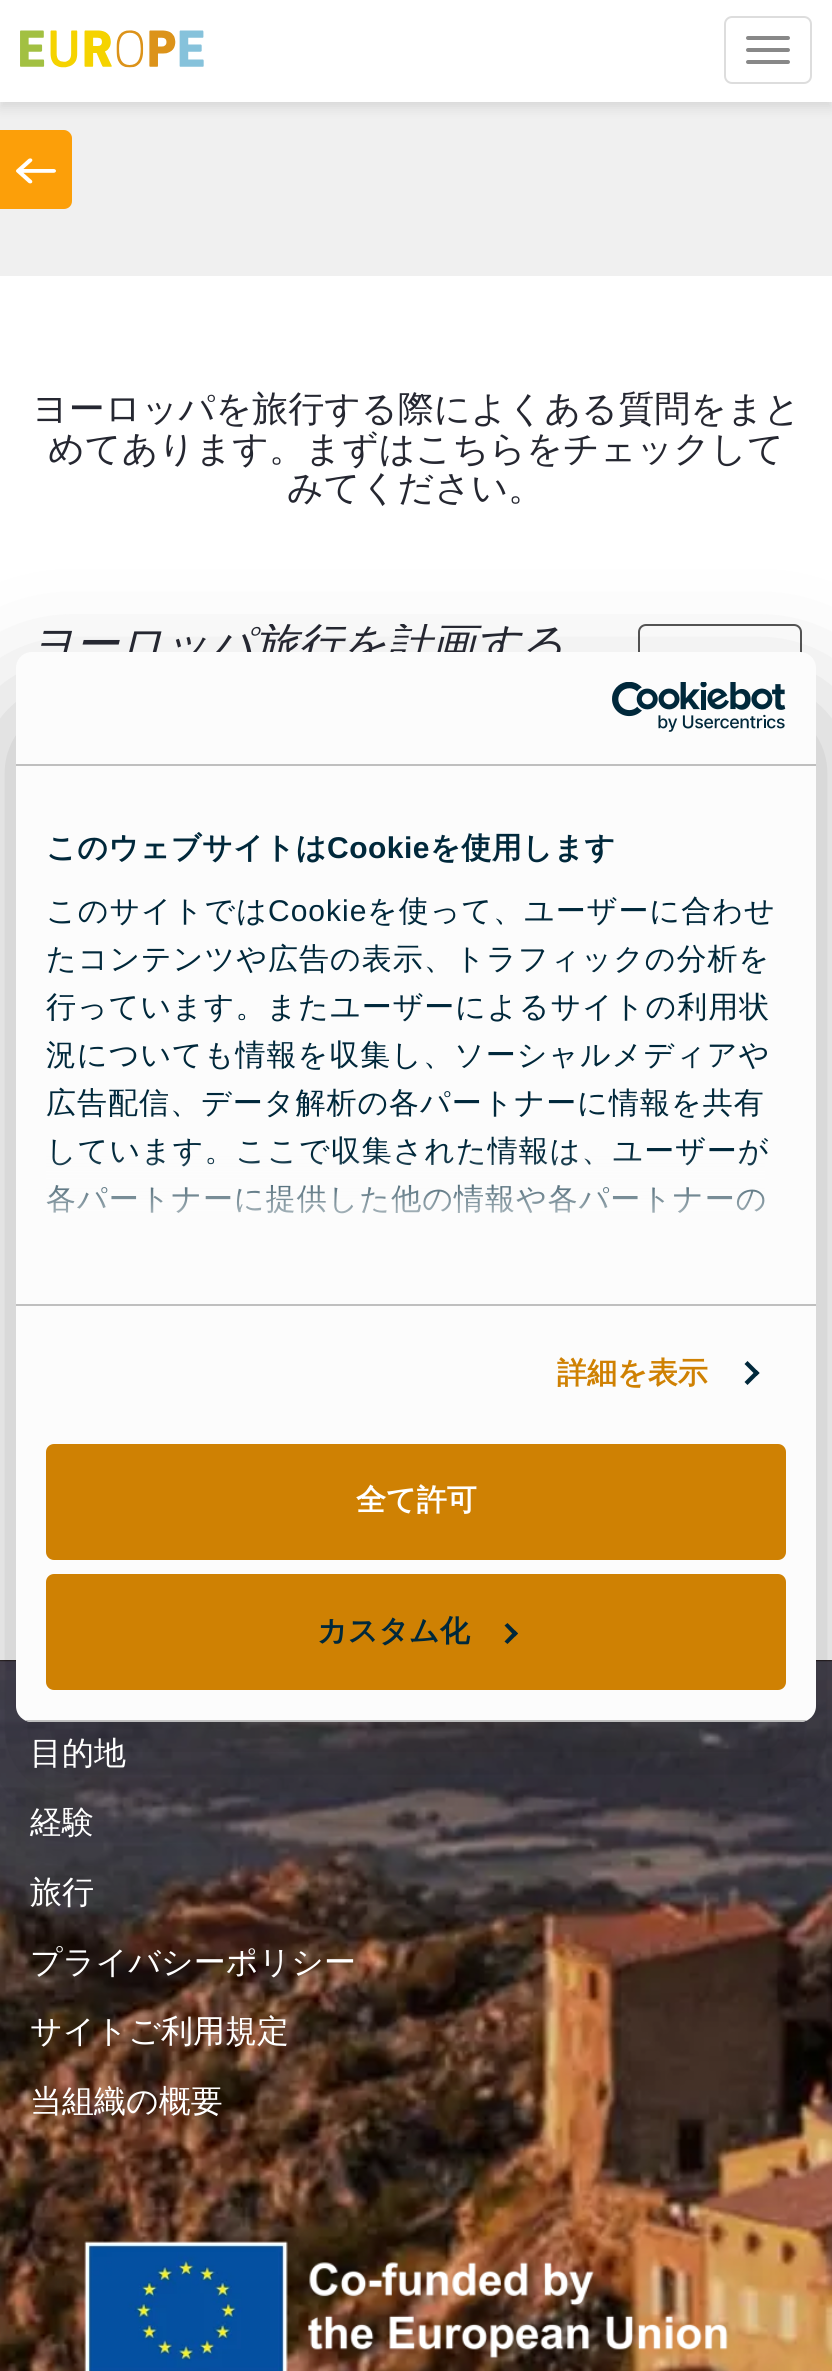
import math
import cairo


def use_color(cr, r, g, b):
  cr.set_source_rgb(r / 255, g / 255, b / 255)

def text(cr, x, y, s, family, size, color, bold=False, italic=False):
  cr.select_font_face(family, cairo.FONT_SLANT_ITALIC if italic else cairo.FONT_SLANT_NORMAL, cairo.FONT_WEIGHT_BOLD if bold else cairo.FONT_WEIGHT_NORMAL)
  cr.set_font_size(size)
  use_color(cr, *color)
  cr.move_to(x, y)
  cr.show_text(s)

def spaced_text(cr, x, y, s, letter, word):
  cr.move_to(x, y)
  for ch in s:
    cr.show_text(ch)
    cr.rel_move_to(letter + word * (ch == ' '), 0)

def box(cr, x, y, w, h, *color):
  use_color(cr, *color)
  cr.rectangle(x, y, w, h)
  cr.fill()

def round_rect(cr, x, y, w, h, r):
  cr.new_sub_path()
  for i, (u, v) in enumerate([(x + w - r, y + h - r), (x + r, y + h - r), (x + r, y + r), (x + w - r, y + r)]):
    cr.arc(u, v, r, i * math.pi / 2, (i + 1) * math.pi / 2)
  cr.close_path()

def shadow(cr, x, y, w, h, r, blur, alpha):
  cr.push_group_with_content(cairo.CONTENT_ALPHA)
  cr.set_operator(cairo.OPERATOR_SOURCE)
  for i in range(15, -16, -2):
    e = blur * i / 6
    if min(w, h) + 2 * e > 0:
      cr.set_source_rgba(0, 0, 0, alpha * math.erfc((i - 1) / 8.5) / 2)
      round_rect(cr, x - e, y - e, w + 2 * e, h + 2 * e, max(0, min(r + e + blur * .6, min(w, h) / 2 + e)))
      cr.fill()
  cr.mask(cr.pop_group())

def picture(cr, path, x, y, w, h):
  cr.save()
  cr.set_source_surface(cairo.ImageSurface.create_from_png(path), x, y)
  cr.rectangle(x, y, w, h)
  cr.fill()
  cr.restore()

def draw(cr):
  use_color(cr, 255, 255, 255)
  cr.paint()
  box(cr, 0, 102, 832, 174, 240, 240, 240)
  use_color(cr, 0, 0, 0)
  shadow(cr, 0, 6, 832, 102, 0, 6, 0.1)
  box(cr, 0, 0, 832, 102, 255, 255, 255)
  picture(cr, "img_01.png", 20, 30, 184, 38)
  round_rect(cr, 725, 17, 86, 66, 7)
  use_color(cr, 221, 221, 221)
  cr.stroke()
  use_color(cr, 136, 136, 136)
  round_rect(cr, 746, 36, 44, 4, 2)
  cr.fill()
  round_rect(cr, 746, 48, 44, 4, 2)
  cr.fill()
  round_rect(cr, 746, 60, 44, 4, 2)
  cr.fill()
  use_color(cr, 252, 159, 9)
  cr.new_path()
  cr.move_to(64, 209)
  cr.line_to(0, 209)
  cr.line_to(0, 130)
  cr.line_to(64, 130)
  cr.curve_to(68, 130, 72, 134, 72, 138)
  cr.line_to(72, 201)
  cr.curve_to(72, 206, 68, 209, 64, 209)
  cr.close_path()
  cr.fill()
  picture(cr, "img_02.png", 16, 158, 40, 26)
  round_rect(cr, 639, 625, 162, 66, 7)
  use_color(cr, 85, 85, 85)
  cr.stroke()
  picture(cr, "img_03.png", 0, 1660, 832, 711)
  picture(cr, "img_04.png", 84, 2241, 644, 130)
  use_color(cr, 0, 0, 0)
  shadow(cr, 16, 716, 800, 1070, 16, 68, 0.3)
  text(cr, 32, 421, "ヨーロッパを旅行する際によくある質問をまと", "WenQuanYi Zen Hei Medium", 36, (37, 39, 49))
  text(cr, 48, 461, "めてあります。まずはこちらをチェックして", "WenQuanYi Zen Hei Medium", 36, (37, 39, 49))
  text(cr, 287, 500, "みてください。", "WenQuanYi Zen Hei Medium", 36, (37, 39, 49))
  cr.save()
  cr.rectangle(30, 624, 602, 88)
  cr.clip()
  text(cr, 30, 659, "ヨーロッパ旅行を計画する", "WenQuanYi Zen Hei Medium", 44, (37, 39, 49), italic=True)
  cr.restore()
  text(cr, 30, 1764, "目的地", "WenQuanYi Zen Hei Medium", 32, (255, 255, 255))
  text(cr, 30, 1833, "経験", "WenQuanYi Zen Hei Medium", 32, (255, 255, 255))
  text(cr, 30, 1903, "旅行", "WenQuanYi Zen Hei Medium", 32, (255, 255, 255))
  text(cr, 30, 1973, "プライバシーポリシー", "WenQuanYi Zen Hei Medium", 32, (255, 255, 255))
  text(cr, 30, 2042, "サイトご利用規定", "WenQuanYi Zen Hei Medium", 32, (255, 255, 255))
  text(cr, 30, 2112, "当組織の概要", "WenQuanYi Zen Hei Medium", 32, (255, 255, 255))
  use_color(cr, 252, 252, 252)
  round_rect(cr, 16, 652, 800, 1070, 16)
  cr.fill()
  box(cr, 16, 764, 800, 2, 191, 191, 191)
  picture(cr, "img_05.png", 612, 682, 174, 50)
  box(cr, 16, 1304, 800, 2, 191, 191, 191)
  cr.select_font_face("WenQuanYi Zen Hei", cairo.FONT_SLANT_NORMAL, cairo.FONT_WEIGHT_BOLD)
  cr.set_font_size(30)
  use_color(cr, 0, 40, 59)
  spaced_text(cr, 46, 858, "このウェブサイトは", 0.5, 0)
  cr.select_font_face("Liberation Sans", cairo.FONT_SLANT_NORMAL, cairo.FONT_WEIGHT_BOLD)
  spaced_text(cr, 327, 858, "Cookie", 0.5, 0)
  cr.select_font_face("WenQuanYi Zen Hei", cairo.FONT_SLANT_NORMAL, cairo.FONT_WEIGHT_BOLD)
  spaced_text(cr, 430, 858, "を使用します", 0.5, 0)
  cr.select_font_face("WenQuanYi Zen Hei Medium")
  spaced_text(cr, 46, 921, "このサイトでは", 1, 0)
  cr.select_font_face("Liberation Sans")
  spaced_text(cr, 268, 921, "Cookie", 1, 0)
  cr.select_font_face("WenQuanYi Zen Hei Medium")
  spaced_text(cr, 367, 921, "を使って、ユーザーに合わせ", 1, 0)
  spaced_text(cr, 46, 969, "たコンテンツや広告の表示、トラフィックの分析を", 1, 0)
  spaced_text(cr, 46, 1017, "行っています。またユーザーによるサイトの利用状", 1, 0)
  spaced_text(cr, 46, 1065, "況についても情報を収集し、ソーシャルメディアや", 1, 0)
  spaced_text(cr, 46, 1113, "広告配信、データ解析の各パートナーに情報を共有", 1, 0)
  spaced_text(cr, 46, 1161, "しています。ここで収集された情報は、ユーザーが", 1, 0)
  spaced_text(cr, 46, 1209, "各パートナーに提供した他の情報や各パートナーの", 1, 0)
  gradient = cairo.LinearGradient(403, 1303, 403, 1153)
  gradient.add_color_stop_rgba(0, 0.988, 0.988, 0.988, 1)
  gradient.add_color_stop_rgba(0.5, 0.988, 0.988, 0.988, 0.8)
  gradient.add_color_stop_rgba(1, 0.988, 0.988, 0.988, 0)
  cr.set_source(gradient)
  cr.rectangle(46, 1155, 719, 59)
  cr.fill()
  text(cr, 557, 1383, "詳細を表示", "WenQuanYi Zen Hei", 30, (207, 129, 3), bold=True)
  use_color(cr, 0, 40, 59)
  cr.new_path()
  cr.move_to(747.5, 1361)
  cr.line_to(759.5, 1373)
  cr.line_to(756.5, 1376)
  cr.line_to(744.5, 1364)
  cr.close_path()
  cr.fill()
  cr.new_path()
  cr.move_to(756.5, 1370)
  cr.line_to(759.5, 1373)
  cr.line_to(747.5, 1385)
  cr.line_to(744.5, 1382)
  cr.close_path()
  cr.fill()
  cr.save()
  round_rect(cr, 16, 652, 800, 1070, 16)
  cr.clip()
  box(cr, 16, 1720, 800, 2, 191, 191, 191)
  cr.restore()
  use_color(cr, 207, 129, 3)
  round_rect(cr, 48, 1446, 736, 112, 6)
  cr.fill_preserve()
  cr.set_line_width(4)
  cr.stroke()
  text(cr, 356, 1510, "全て許可", "WenQuanYi Zen Hei", 30, (255, 255, 255), bold=True)
  use_color(cr, 207, 129, 3)
  round_rect(cr, 48, 1576, 736, 112, 6)
  cr.fill_preserve()
  cr.stroke()
  text(cr, 317, 1641, "カスタム化", "WenQuanYi Zen Hei", 30, (0, 40, 59), bold=True)
  cr.new_path()
  cr.move_to(507.5, 1623)
  cr.line_to(518, 1633.5)
  cr.line_to(515, 1636.5)
  cr.line_to(504.5, 1625.5)
  cr.close_path()
  cr.fill()
  cr.new_path()
  cr.move_to(515, 1630.5)
  cr.line_to(518, 1633.5)
  cr.line_to(507.5, 1644)
  cr.line_to(504.5, 1641.5)
  cr.close_path()
  cr.fill()


surface = cairo.ImageSurface(cairo.FORMAT_RGB24, 832, 2371)
cr = cairo.Context(surface)
options = cairo.FontOptions()
options.set_hint_metrics(cairo.HINT_METRICS_OFF)
options.set_hint_style(cairo.HINT_STYLE_NONE)
cr.set_font_options(options)
cr.set_miter_limit(4)
draw(cr)
surface.write_to_png("out.png")
